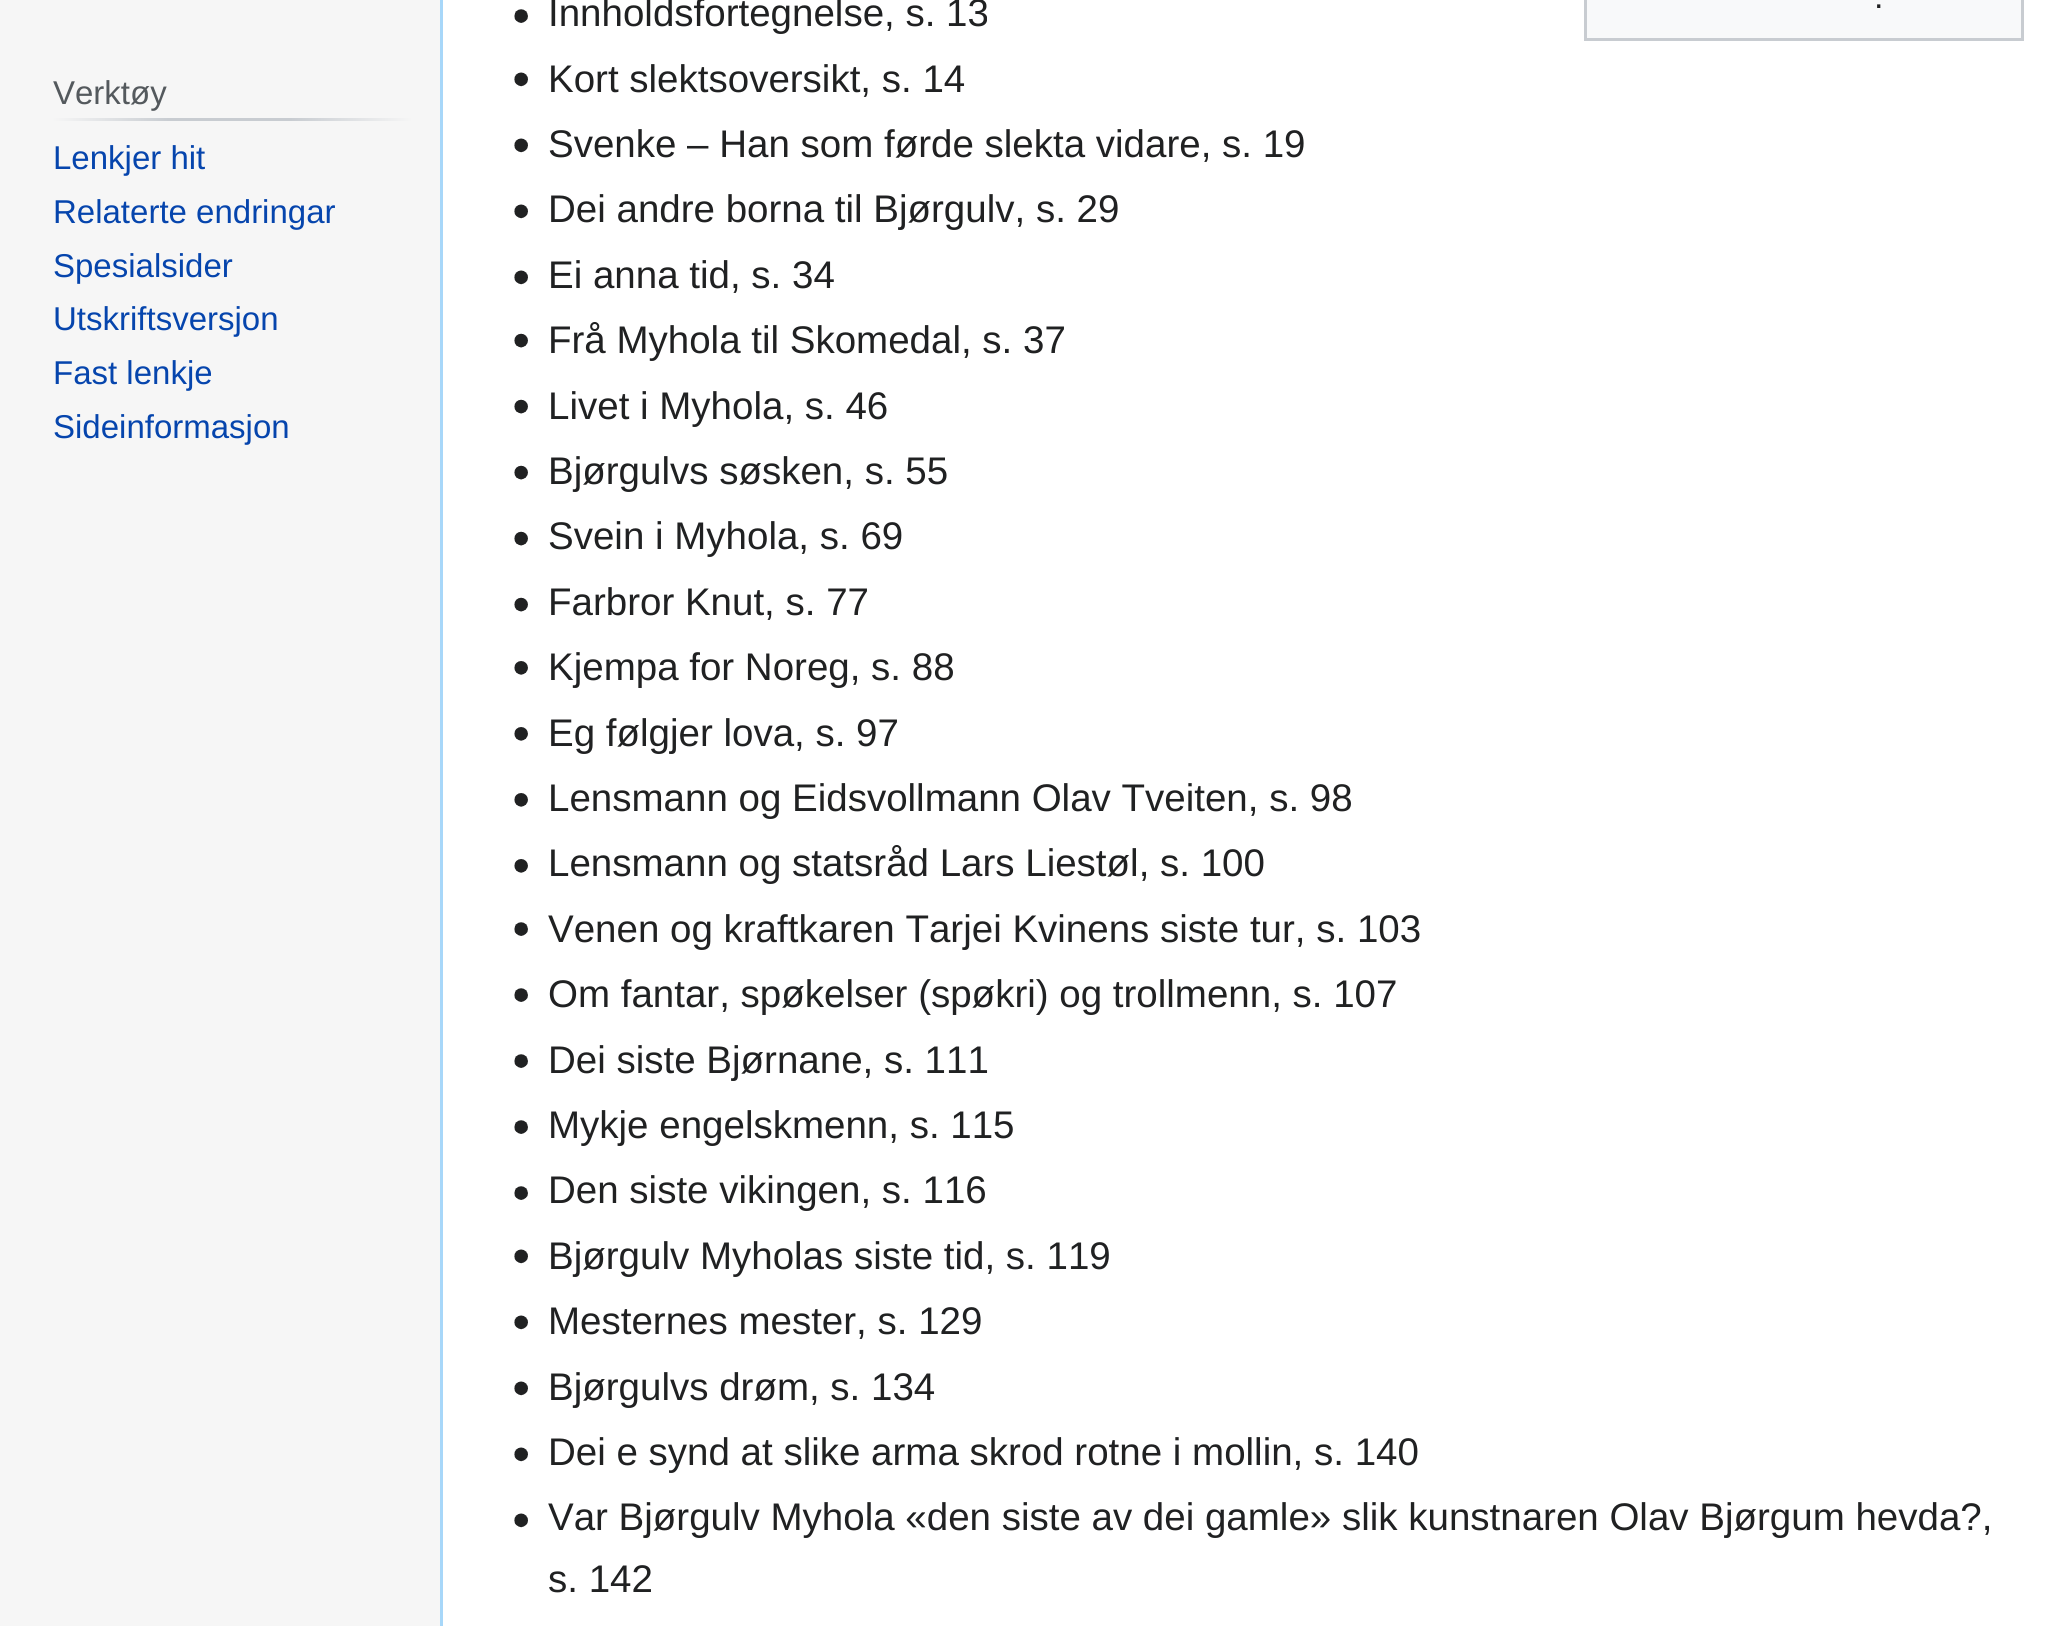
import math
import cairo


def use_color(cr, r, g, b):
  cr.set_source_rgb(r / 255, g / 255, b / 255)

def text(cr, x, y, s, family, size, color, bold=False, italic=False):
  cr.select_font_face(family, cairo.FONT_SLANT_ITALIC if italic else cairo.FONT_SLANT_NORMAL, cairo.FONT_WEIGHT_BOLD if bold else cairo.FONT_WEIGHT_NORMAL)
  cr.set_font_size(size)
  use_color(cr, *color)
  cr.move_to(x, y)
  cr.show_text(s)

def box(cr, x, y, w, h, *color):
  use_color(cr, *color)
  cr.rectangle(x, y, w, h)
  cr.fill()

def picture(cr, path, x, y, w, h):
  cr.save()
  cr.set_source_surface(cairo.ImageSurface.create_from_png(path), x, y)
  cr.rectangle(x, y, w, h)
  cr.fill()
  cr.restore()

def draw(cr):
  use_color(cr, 246, 246, 246)
  cr.paint()
  gradient = cairo.LinearGradient(52, 120, 413, 120)
  gradient.add_color_stop_rgba(0, 0.965, 0.965, 0.965, 1)
  gradient.add_color_stop_rgba(0.33, 0.784, 0.8, 0.82, 1)
  gradient.add_color_stop_rgba(0.66, 0.784, 0.8, 0.82, 1)
  gradient.add_color_stop_rgba(1, 0.965, 0.965, 0.965, 1)
  cr.set_source(gradient)
  cr.rectangle(52, 118, 361, 3)
  cr.fill()
  box(cr, 443, 0, 1624, 1626, 255, 255, 255)
  box(cr, 440, 0, 3, 1626, 167, 215, 249)
  picture(cr, "img_01.png", 514, 9, 14, 14)
  picture(cr, "img_02.png", 514, 72, 14, 15)
  picture(cr, "img_02.png", 514, 138, 14, 15)
  picture(cr, "img_02.png", 514, 204, 14, 15)
  picture(cr, "img_02.png", 514, 270, 14, 15)
  picture(cr, "img_03.png", 514, 333, 14, 15)
  picture(cr, "img_03.png", 514, 399, 14, 15)
  picture(cr, "img_03.png", 514, 465, 14, 15)
  picture(cr, "img_03.png", 514, 531, 14, 15)
  picture(cr, "img_03.png", 514, 597, 14, 15)
  picture(cr, "img_04.png", 514, 661, 14, 14)
  picture(cr, "img_04.png", 514, 727, 14, 14)
  picture(cr, "img_04.png", 514, 793, 14, 14)
  picture(cr, "img_04.png", 514, 859, 14, 14)
  picture(cr, "img_01.png", 514, 922, 14, 14)
  picture(cr, "img_01.png", 514, 988, 14, 14)
  picture(cr, "img_01.png", 514, 1054, 14, 14)
  picture(cr, "img_01.png", 514, 1120, 14, 14)
  picture(cr, "img_01.png", 514, 1186, 14, 14)
  picture(cr, "img_02.png", 514, 1249, 14, 15)
  picture(cr, "img_02.png", 514, 1315, 14, 15)
  picture(cr, "img_02.png", 514, 1381, 14, 15)
  picture(cr, "img_02.png", 514, 1447, 14, 15)
  picture(cr, "img_05.png", 514, 1513, 14, 15)
  use_color(cr, 248, 249, 250)
  cr.rectangle(1585.5, -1.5, 437, 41)
  cr.fill_preserve()
  use_color(cr, 200, 204, 209)
  cr.set_line_width(3)
  cr.stroke()
  text(cr, 53, 104, "Verktøy", "Liberation Sans", 33, (84, 89, 93))
  text(cr, 53, 169, "Lenkjer hit", "Liberation Sans", 33, (6, 69, 173))
  text(cr, 53, 223, "Relaterte endringar", "Liberation Sans", 33, (6, 69, 173))
  text(cr, 53, 277, "Spesialsider", "Liberation Sans", 33, (6, 69, 173))
  text(cr, 53, 330, "Utskriftsversjon", "Liberation Sans", 33, (6, 69, 173))
  text(cr, 53, 384, "Fast lenkje", "Liberation Sans", 33, (6, 69, 173))
  text(cr, 53, 438, "Sideinformasjon", "Liberation Sans", 33, (6, 69, 173))
  text(cr, 548, 26, "Innholdsfortegnelse, s. 13", "Liberation Sans", 38.5, (32, 33, 34))
  text(cr, 548, 92, "Kort slektsoversikt, s. 14", "Liberation Sans", 38.5, (32, 33, 34))
  text(cr, 548, 157, "Svenke – Han som førde slekta vidare, s. 19", "Liberation Sans", 38.5, (32, 33, 34))
  text(cr, 548, 222, "Dei andre borna til Bjørgulv, s. 29", "Liberation Sans", 38.5, (32, 33, 34))
  text(cr, 548, 288, "Ei anna tid, s. 34", "Liberation Sans", 38.5, (32, 33, 34))
  text(cr, 548, 353, "Frå Myhola til Skomedal, s. 37", "Liberation Sans", 38.5, (32, 33, 34))
  text(cr, 548, 419, "Livet i Myhola, s. 46", "Liberation Sans", 38.5, (32, 33, 34))
  text(cr, 548, 484, "Bjørgulvs søsken, s. 55", "Liberation Sans", 38.5, (32, 33, 34))
  text(cr, 548, 549, "Svein i Myhola, s. 69", "Liberation Sans", 38.5, (32, 33, 34))
  text(cr, 548, 615, "Farbror Knut, s. 77", "Liberation Sans", 38.5, (32, 33, 34))
  text(cr, 548, 680, "Kjempa for Noreg, s. 88", "Liberation Sans", 38.5, (32, 33, 34))
  text(cr, 548, 746, "Eg følgjer lova, s. 97", "Liberation Sans", 38.5, (32, 33, 34))
  text(cr, 548, 811, "Lensmann og Eidsvollmann Olav Tveiten, s. 98", "Liberation Sans", 38.5, (32, 33, 34))
  text(cr, 548, 876, "Lensmann og statsråd Lars Liestøl, s. 100", "Liberation Sans", 38.5, (32, 33, 34))
  text(cr, 548, 942, "Venen og kraftkaren Tarjei Kvinens siste tur, s. 103", "Liberation Sans", 38.5, (32, 33, 34))
  text(cr, 548, 1007, "Om fantar, spøkelser (spøkri) og trollmenn, s. 107", "Liberation Sans", 38.5, (32, 33, 34))
  text(cr, 548, 1073, "Dei siste Bjørnane, s. 111", "Liberation Sans", 38.5, (32, 33, 34))
  text(cr, 548, 1138, "Mykje engelskmenn, s. 115", "Liberation Sans", 38.5, (32, 33, 34))
  text(cr, 548, 1203, "Den siste vikingen, s. 116", "Liberation Sans", 38.5, (32, 33, 34))
  text(cr, 548, 1269, "Bjørgulv Myholas siste tid, s. 119", "Liberation Sans", 38.5, (32, 33, 34))
  text(cr, 548, 1334, "Mesternes mester, s. 129", "Liberation Sans", 38.5, (32, 33, 34))
  text(cr, 548, 1400, "Bjørgulvs drøm, s. 134", "Liberation Sans", 38.5, (32, 33, 34))
  text(cr, 548, 1465, "Dei e synd at slike arma skrod rotne i mollin, s. 140", "Liberation Sans", 38.5, (32, 33, 34))
  text(cr, 548, 1530, "Var Bjørgulv Myhola «den siste av dei gamle» slik kunstnaren Olav Bjørgum hevda?,", "Liberation Sans", 38.5, (32, 33, 34))
  text(cr, 548, 1592, "s. 142", "Liberation Sans", 38.5, (32, 33, 34))
  text(cr, 1874, 8, ".", "Liberation Sans", 34, (32, 33, 34))


surface = cairo.ImageSurface(cairo.FORMAT_RGB24, 2067, 1626)
cr = cairo.Context(surface)
options = cairo.FontOptions()
options.set_hint_metrics(cairo.HINT_METRICS_OFF)
options.set_hint_style(cairo.HINT_STYLE_NONE)
cr.set_font_options(options)
cr.set_miter_limit(4)
draw(cr)
surface.write_to_png("out.png")
